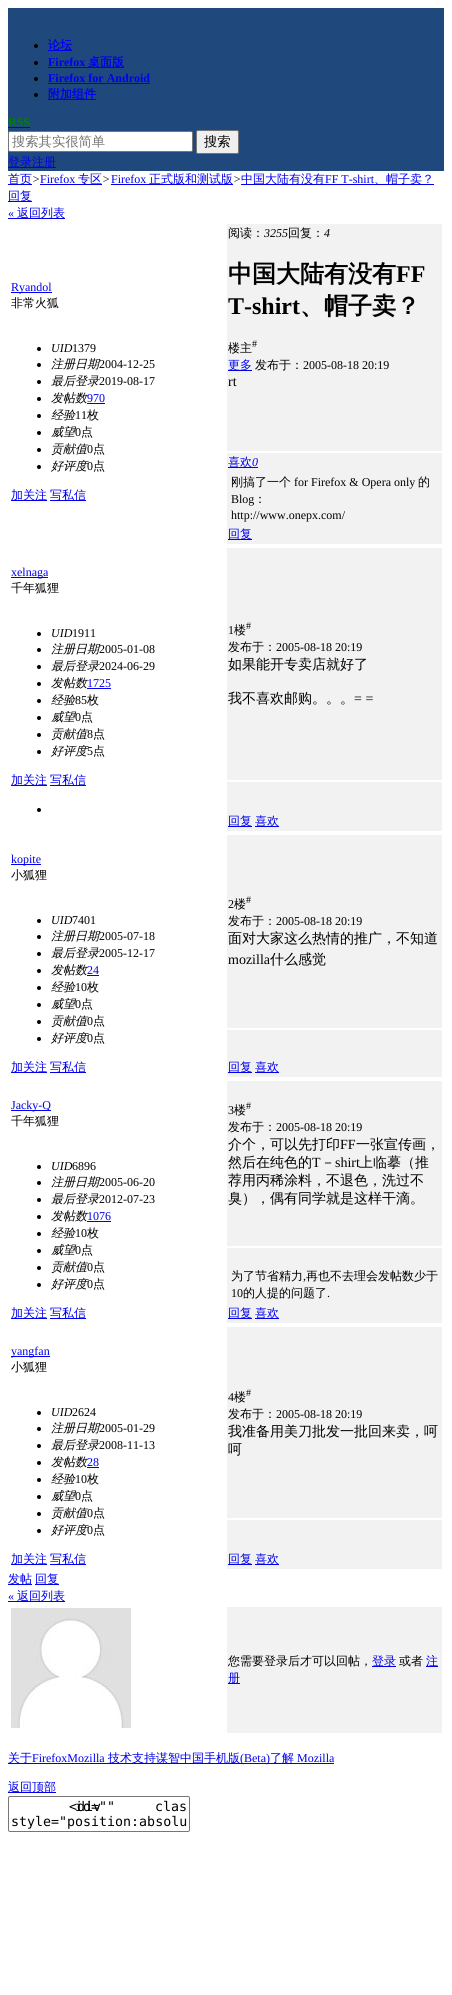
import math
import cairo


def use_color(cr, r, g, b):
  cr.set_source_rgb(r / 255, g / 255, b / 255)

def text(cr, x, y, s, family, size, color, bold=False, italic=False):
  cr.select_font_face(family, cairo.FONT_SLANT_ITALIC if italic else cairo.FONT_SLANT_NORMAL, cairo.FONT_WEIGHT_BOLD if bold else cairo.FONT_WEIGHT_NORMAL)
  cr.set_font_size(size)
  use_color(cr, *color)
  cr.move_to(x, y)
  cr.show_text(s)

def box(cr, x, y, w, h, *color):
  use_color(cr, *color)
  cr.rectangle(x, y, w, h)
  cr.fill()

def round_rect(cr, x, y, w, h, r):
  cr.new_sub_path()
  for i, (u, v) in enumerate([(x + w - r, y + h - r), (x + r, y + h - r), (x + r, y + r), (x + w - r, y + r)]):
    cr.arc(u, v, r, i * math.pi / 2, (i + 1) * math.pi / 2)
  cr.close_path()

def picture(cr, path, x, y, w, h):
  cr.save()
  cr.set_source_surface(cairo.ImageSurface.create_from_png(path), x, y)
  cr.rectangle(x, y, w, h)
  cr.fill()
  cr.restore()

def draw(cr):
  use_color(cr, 255, 255, 255)
  cr.paint()
  box(cr, 8, 8, 436, 163, 31, 73, 125)
  use_color(cr, 0, 0, 0)
  cr.arc(36, 46, 2, 0, 2 * math.pi)
  cr.fill()
  box(cr, 48, 50, 24, 1, 0, 0, 238)
  use_color(cr, 0, 0, 0)
  cr.arc(36, 63, 2, 0, 2 * math.pi)
  cr.fill()
  box(cr, 48, 67, 76, 1, 0, 0, 238)
  use_color(cr, 0, 0, 0)
  cr.arc(36, 79, 2, 0, 2 * math.pi)
  cr.fill()
  box(cr, 48, 83, 102, 1, 0, 0, 238)
  use_color(cr, 0, 0, 0)
  cr.arc(36, 95, 2, 0, 2 * math.pi)
  cr.fill()
  box(cr, 48, 99, 48, 1, 0, 0, 238)
  box(cr, 8, 127, 22, 1, 0, 0, 238)
  use_color(cr, 255, 255, 255)
  round_rect(cr, 8.5, 131.5, 184, 20, 1.5)
  cr.fill_preserve()
  use_color(cr, 118, 118, 118)
  cr.set_line_width(1)
  cr.stroke()
  use_color(cr, 239, 239, 239)
  round_rect(cr, 196.5, 130.5, 42, 23, 1.5)
  cr.fill_preserve()
  use_color(cr, 118, 118, 118)
  cr.stroke()
  box(cr, 8, 167, 48, 1, 0, 0, 238)
  box(cr, 8, 184, 24, 1, 0, 0, 238)
  box(cr, 40, 184, 62, 1, 0, 0, 238)
  box(cr, 111, 184, 122, 1, 0, 0, 238)
  box(cr, 241, 184, 193, 1, 0, 0, 238)
  box(cr, 8, 201, 24, 1, 0, 0, 238)
  box(cr, 8, 218, 57, 1, 0, 0, 238)
  box(cr, 11, 292, 41, 1, 0, 0, 238)
  use_color(cr, 0, 0, 0)
  cr.arc(39, 349, 2, 0, 2 * math.pi)
  cr.fill()
  cr.arc(39, 365, 2, 0, 2 * math.pi)
  cr.fill()
  cr.arc(39, 382, 2, 0, 2 * math.pi)
  cr.fill()
  cr.arc(39, 399, 2, 0, 2 * math.pi)
  cr.fill()
  cr.arc(39, 416, 2, 0, 2 * math.pi)
  cr.fill()
  cr.arc(39, 433, 2, 0, 2 * math.pi)
  cr.fill()
  cr.arc(39, 450, 2, 0, 2 * math.pi)
  cr.fill()
  cr.arc(39, 467, 2, 0, 2 * math.pi)
  cr.fill()
  box(cr, 11, 500, 36, 1, 0, 0, 238)
  box(cr, 50, 500, 36, 1, 0, 0, 238)
  box(cr, 227, 224, 215, 227, 242, 242, 242)
  box(cr, 228, 370, 24, 1, 0, 0, 238)
  box(cr, 227, 453, 215, 91, 242, 242, 242)
  box(cr, 228, 467, 30, 1, 0, 0, 238)
  box(cr, 228, 539, 24, 1, 0, 0, 238)
  box(cr, 11, 577, 37, 1, 0, 0, 238)
  use_color(cr, 0, 0, 0)
  cr.arc(39, 634, 2, 0, 2 * math.pi)
  cr.fill()
  cr.arc(39, 650, 2, 0, 2 * math.pi)
  cr.fill()
  cr.arc(39, 667, 2, 0, 2 * math.pi)
  cr.fill()
  cr.arc(39, 684, 2, 0, 2 * math.pi)
  cr.fill()
  cr.arc(39, 701, 2, 0, 2 * math.pi)
  cr.fill()
  cr.arc(39, 718, 2, 0, 2 * math.pi)
  cr.fill()
  cr.arc(39, 735, 2, 0, 2 * math.pi)
  cr.fill()
  cr.arc(39, 752, 2, 0, 2 * math.pi)
  cr.fill()
  box(cr, 11, 785, 36, 1, 0, 0, 238)
  box(cr, 50, 785, 36, 1, 0, 0, 238)
  use_color(cr, 0, 0, 0)
  cr.arc(39, 810, 2, 0, 2 * math.pi)
  cr.fill()
  box(cr, 227, 548, 215, 232, 242, 242, 242)
  box(cr, 227, 782, 215, 49, 242, 242, 242)
  box(cr, 228, 826, 24, 1, 0, 0, 238)
  box(cr, 255, 826, 24, 1, 0, 0, 238)
  box(cr, 11, 864, 30, 1, 0, 0, 238)
  use_color(cr, 0, 0, 0)
  cr.arc(39, 921, 2, 0, 2 * math.pi)
  cr.fill()
  cr.arc(39, 937, 2, 0, 2 * math.pi)
  cr.fill()
  cr.arc(39, 954, 2, 0, 2 * math.pi)
  cr.fill()
  cr.arc(39, 971, 2, 0, 2 * math.pi)
  cr.fill()
  cr.arc(39, 988, 2, 0, 2 * math.pi)
  cr.fill()
  cr.arc(39, 1005, 2, 0, 2 * math.pi)
  cr.fill()
  cr.arc(39, 1022, 2, 0, 2 * math.pi)
  cr.fill()
  cr.arc(39, 1039, 2, 0, 2 * math.pi)
  cr.fill()
  box(cr, 11, 1072, 36, 1, 0, 0, 238)
  box(cr, 50, 1072, 36, 1, 0, 0, 238)
  box(cr, 227, 835, 215, 193, 242, 242, 242)
  box(cr, 227, 1030, 215, 47, 242, 242, 242)
  box(cr, 228, 1072, 24, 1, 0, 0, 238)
  box(cr, 255, 1072, 24, 1, 0, 0, 238)
  box(cr, 11, 1110, 40, 1, 0, 0, 238)
  use_color(cr, 0, 0, 0)
  cr.arc(39, 1167, 2, 0, 2 * math.pi)
  cr.fill()
  cr.arc(39, 1183, 2, 0, 2 * math.pi)
  cr.fill()
  cr.arc(39, 1200, 2, 0, 2 * math.pi)
  cr.fill()
  cr.arc(39, 1217, 2, 0, 2 * math.pi)
  cr.fill()
  cr.arc(39, 1234, 2, 0, 2 * math.pi)
  cr.fill()
  cr.arc(39, 1251, 2, 0, 2 * math.pi)
  cr.fill()
  cr.arc(39, 1268, 2, 0, 2 * math.pi)
  cr.fill()
  cr.arc(39, 1285, 2, 0, 2 * math.pi)
  cr.fill()
  box(cr, 11, 1318, 36, 1, 0, 0, 238)
  box(cr, 50, 1318, 36, 1, 0, 0, 238)
  box(cr, 227, 1081, 215, 165, 242, 242, 242)
  box(cr, 227, 1248, 215, 75, 242, 242, 242)
  box(cr, 228, 1318, 24, 1, 0, 0, 238)
  box(cr, 255, 1318, 24, 1, 0, 0, 238)
  box(cr, 11, 1356, 39, 1, 0, 0, 238)
  use_color(cr, 0, 0, 0)
  cr.arc(39, 1413, 2, 0, 2 * math.pi)
  cr.fill()
  cr.arc(39, 1429, 2, 0, 2 * math.pi)
  cr.fill()
  cr.arc(39, 1446, 2, 0, 2 * math.pi)
  cr.fill()
  cr.arc(39, 1463, 2, 0, 2 * math.pi)
  cr.fill()
  cr.arc(39, 1480, 2, 0, 2 * math.pi)
  cr.fill()
  cr.arc(39, 1497, 2, 0, 2 * math.pi)
  cr.fill()
  cr.arc(39, 1514, 2, 0, 2 * math.pi)
  cr.fill()
  cr.arc(39, 1531, 2, 0, 2 * math.pi)
  cr.fill()
  box(cr, 11, 1564, 36, 1, 0, 0, 238)
  box(cr, 50, 1564, 36, 1, 0, 0, 238)
  box(cr, 227, 1327, 215, 191, 242, 242, 242)
  box(cr, 227, 1520, 215, 49, 242, 242, 242)
  box(cr, 228, 1564, 24, 1, 0, 0, 238)
  box(cr, 255, 1564, 24, 1, 0, 0, 238)
  box(cr, 8, 1584, 24, 1, 0, 0, 238)
  box(cr, 35, 1584, 24, 1, 0, 0, 238)
  box(cr, 8, 1601, 57, 1, 0, 0, 238)
  picture(cr, "img_01.png", 11, 1608, 120, 120)
  box(cr, 227, 1607, 215, 126, 242, 242, 242)
  box(cr, 372, 1666, 24, 1, 0, 0, 238)
  box(cr, 426, 1666, 12, 1, 0, 0, 238)
  box(cr, 228, 1683, 12, 1, 0, 0, 238)
  box(cr, 8, 1763, 326, 1, 0, 0, 238)
  box(cr, 8, 1792, 48, 1, 0, 0, 238)
  round_rect(cr, 8.5, 1796.5, 181, 35, 1.5)
  use_color(cr, 118, 118, 118)
  cr.stroke()
  text(cr, 48, 49, "论坛", "WenQuanYi Zen Hei", 12, (0, 0, 238), bold=True)
  text(cr, 48, 66, "Firefox", "Liberation Serif", 12, (0, 0, 238), bold=True)
  text(cr, 88, 66, "桌面版", "WenQuanYi Zen Hei", 12, (0, 0, 238), bold=True)
  text(cr, 48, 82, "Firefox for Android", "Liberation Serif", 12, (0, 0, 238), bold=True)
  text(cr, 48, 98, "附加组件", "WenQuanYi Zen Hei", 12, (0, 0, 238), bold=True)
  text(cr, 8, 126, "RSS", "Liberation Serif", 12, (0, 128, 0), bold=True)
  text(cr, 12, 146, "搜索其实很简单", "WenQuanYi Zen Hei Medium", 13.3, (117, 117, 117))
  text(cr, 204, 146, "搜索", "WenQuanYi Zen Hei Medium", 13.3, (0, 0, 0))
  text(cr, 8, 166, "登录注册", "WenQuanYi Zen Hei Medium", 12, (0, 0, 238))
  text(cr, 8, 183, "首页", "WenQuanYi Zen Hei Medium", 12, (0, 0, 238))
  text(cr, 32, 183, ">", "Liberation Serif", 12, (0, 0, 0), italic=True)
  text(cr, 40, 183, "Firefox", "Liberation Serif", 12, (0, 0, 238))
  text(cr, 78, 183, "专区", "WenQuanYi Zen Hei Medium", 12, (0, 0, 238))
  text(cr, 102, 183, ">", "Liberation Serif", 12, (0, 0, 0), italic=True)
  text(cr, 111, 183, "Firefox", "Liberation Serif", 12, (0, 0, 238))
  text(cr, 149, 183, "正式版和测试版", "WenQuanYi Zen Hei Medium", 12, (0, 0, 238))
  text(cr, 233, 183, ">", "Liberation Serif", 12, (0, 0, 0), italic=True)
  text(cr, 241, 183, "中国大陆有没有", "WenQuanYi Zen Hei Medium", 12, (0, 0, 238))
  text(cr, 325, 183, "FF T-shirt", "Liberation Serif", 12, (0, 0, 238))
  text(cr, 374, 183, "、帽子卖？", "WenQuanYi Zen Hei Medium", 12, (0, 0, 238))
  text(cr, 8, 200, "回复", "WenQuanYi Zen Hei Medium", 12, (0, 0, 238))
  text(cr, 8, 217, "«", "Liberation Serif", 12, (0, 0, 238))
  text(cr, 17, 217, "返回列表", "WenQuanYi Zen Hei Medium", 12, (0, 0, 238))
  text(cr, 11, 291, "Ryandol", "Liberation Serif", 12, (0, 0, 238))
  text(cr, 11, 307, "非常火狐", "WenQuanYi Zen Hei Medium", 12, (0, 0, 0))
  text(cr, 51, 352, "UID", "Liberation Serif", 12, (0, 0, 0), italic=True)
  text(cr, 72, 352, "1379", "Liberation Serif", 12, (0, 0, 0))
  text(cr, 51, 368, "注册日期", "WenQuanYi Zen Hei Medium", 12, (0, 0, 0), italic=True)
  text(cr, 99, 368, "2004-12-25", "Liberation Serif", 12, (0, 0, 0))
  text(cr, 51, 385, "最后登录", "WenQuanYi Zen Hei Medium", 12, (0, 0, 0), italic=True)
  text(cr, 99, 385, "2019-08-17", "Liberation Serif", 12, (0, 0, 0))
  text(cr, 51, 402, "发帖数", "WenQuanYi Zen Hei Medium", 12, (0, 0, 0), italic=True)
  text(cr, 87, 402, "970", "Liberation Serif", 12, (0, 0, 238))
  box(cr, 87, 403, 18, 1, 0, 0, 238)
  text(cr, 51, 419, "经验", "WenQuanYi Zen Hei Medium", 12, (0, 0, 0), italic=True)
  text(cr, 75, 419, "11", "Liberation Serif", 12, (0, 0, 0))
  text(cr, 87, 419, "枚", "WenQuanYi Zen Hei Medium", 12, (0, 0, 0))
  text(cr, 51, 436, "威望", "WenQuanYi Zen Hei Medium", 12, (0, 0, 0), italic=True)
  text(cr, 75, 436, "0", "Liberation Serif", 12, (0, 0, 0))
  text(cr, 81, 436, "点", "WenQuanYi Zen Hei Medium", 12, (0, 0, 0))
  text(cr, 51, 453, "贡献值", "WenQuanYi Zen Hei Medium", 12, (0, 0, 0), italic=True)
  text(cr, 87, 453, "0", "Liberation Serif", 12, (0, 0, 0))
  text(cr, 93, 453, "点", "WenQuanYi Zen Hei Medium", 12, (0, 0, 0))
  text(cr, 51, 470, "好评度", "WenQuanYi Zen Hei Medium", 12, (0, 0, 0), italic=True)
  text(cr, 87, 470, "0", "Liberation Serif", 12, (0, 0, 0))
  text(cr, 93, 470, "点", "WenQuanYi Zen Hei Medium", 12, (0, 0, 0))
  text(cr, 11, 499, "加关注", "WenQuanYi Zen Hei Medium", 12, (0, 0, 238))
  text(cr, 50, 499, "写私信", "WenQuanYi Zen Hei Medium", 12, (0, 0, 238))
  text(cr, 228, 237, "阅读：", "WenQuanYi Zen Hei Medium", 12, (0, 0, 0))
  text(cr, 264, 237, "3255", "Liberation Serif", 12, (0, 0, 0), italic=True)
  text(cr, 288, 237, "回复：", "WenQuanYi Zen Hei Medium", 12, (0, 0, 0))
  text(cr, 324, 237, "4", "Liberation Serif", 12, (0, 0, 0), italic=True)
  text(cr, 228, 282, "中国大陆有没有", "WenQuanYi Zen Hei", 24, (0, 0, 0), bold=True)
  text(cr, 396, 282, "FF", "Liberation Serif", 24, (0, 0, 0), bold=True)
  text(cr, 228, 314, "T-shirt", "Liberation Serif", 24, (0, 0, 0), bold=True)
  text(cr, 300, 314, "、帽子卖？", "WenQuanYi Zen Hei", 24, (0, 0, 0), bold=True)
  text(cr, 228, 352, "楼主", "WenQuanYi Zen Hei Medium", 12, (0, 0, 0))
  text(cr, 252, 347, "#", "Liberation Serif", 10, (0, 0, 0))
  text(cr, 228, 369, "更多", "WenQuanYi Zen Hei Medium", 12, (0, 0, 238))
  text(cr, 255, 369, "发布于：", "WenQuanYi Zen Hei Medium", 12, (0, 0, 0))
  text(cr, 303, 369, "2005-08-18 20:19", "Liberation Serif", 12, (0, 0, 0))
  text(cr, 228, 386, "rt", "Liberation Serif", 14, (0, 0, 0))
  text(cr, 228, 466, "喜欢", "WenQuanYi Zen Hei Medium", 12, (0, 0, 238))
  text(cr, 252, 466, "0", "Liberation Serif", 12, (0, 0, 238), italic=True)
  text(cr, 231, 486, "刚搞了一个", "WenQuanYi Zen Hei Medium", 12, (0, 0, 0))
  text(cr, 294, 486, "for Firefox & Opera only", "Liberation Serif", 12, (0, 0, 0))
  text(cr, 418, 486, "的", "WenQuanYi Zen Hei Medium", 12, (0, 0, 0))
  text(cr, 231, 503, "Blog", "Liberation Serif", 12, (0, 0, 0))
  text(cr, 254, 503, "：", "WenQuanYi Zen Hei Medium", 12, (0, 0, 0))
  text(cr, 231, 519, "http://www.onepx.com/", "Liberation Serif", 12, (0, 0, 0))
  text(cr, 228, 538, "回复", "WenQuanYi Zen Hei Medium", 12, (0, 0, 238))
  text(cr, 11, 576, "xelnaga", "Liberation Serif", 12, (0, 0, 238))
  text(cr, 11, 592, "千年狐狸", "WenQuanYi Zen Hei Medium", 12, (0, 0, 0))
  text(cr, 51, 637, "UID", "Liberation Serif", 12, (0, 0, 0), italic=True)
  text(cr, 72, 637, "1911", "Liberation Serif", 12, (0, 0, 0))
  text(cr, 51, 653, "注册日期", "WenQuanYi Zen Hei Medium", 12, (0, 0, 0), italic=True)
  text(cr, 99, 653, "2005-01-08", "Liberation Serif", 12, (0, 0, 0))
  text(cr, 51, 670, "最后登录", "WenQuanYi Zen Hei Medium", 12, (0, 0, 0), italic=True)
  text(cr, 99, 670, "2024-06-29", "Liberation Serif", 12, (0, 0, 0))
  text(cr, 51, 687, "发帖数", "WenQuanYi Zen Hei Medium", 12, (0, 0, 0), italic=True)
  text(cr, 87, 687, "1725", "Liberation Serif", 12, (0, 0, 238))
  box(cr, 87, 688, 24, 1, 0, 0, 238)
  text(cr, 51, 704, "经验", "WenQuanYi Zen Hei Medium", 12, (0, 0, 0), italic=True)
  text(cr, 75, 704, "85", "Liberation Serif", 12, (0, 0, 0))
  text(cr, 87, 704, "枚", "WenQuanYi Zen Hei Medium", 12, (0, 0, 0))
  text(cr, 51, 721, "威望", "WenQuanYi Zen Hei Medium", 12, (0, 0, 0), italic=True)
  text(cr, 75, 721, "0", "Liberation Serif", 12, (0, 0, 0))
  text(cr, 81, 721, "点", "WenQuanYi Zen Hei Medium", 12, (0, 0, 0))
  text(cr, 51, 738, "贡献值", "WenQuanYi Zen Hei Medium", 12, (0, 0, 0), italic=True)
  text(cr, 87, 738, "8", "Liberation Serif", 12, (0, 0, 0))
  text(cr, 93, 738, "点", "WenQuanYi Zen Hei Medium", 12, (0, 0, 0))
  text(cr, 51, 755, "好评度", "WenQuanYi Zen Hei Medium", 12, (0, 0, 0), italic=True)
  text(cr, 87, 755, "5", "Liberation Serif", 12, (0, 0, 0))
  text(cr, 93, 755, "点", "WenQuanYi Zen Hei Medium", 12, (0, 0, 0))
  text(cr, 11, 784, "加关注", "WenQuanYi Zen Hei Medium", 12, (0, 0, 238))
  text(cr, 50, 784, "写私信", "WenQuanYi Zen Hei Medium", 12, (0, 0, 238))
  text(cr, 228, 634, "1", "Liberation Serif", 12, (0, 0, 0))
  text(cr, 234, 634, "楼", "WenQuanYi Zen Hei Medium", 12, (0, 0, 0))
  text(cr, 246, 629, "#", "Liberation Serif", 10, (0, 0, 0))
  text(cr, 228, 651, "发布于：", "WenQuanYi Zen Hei Medium", 12, (0, 0, 0))
  text(cr, 276, 651, "2005-08-18 20:19", "Liberation Serif", 12, (0, 0, 0))
  text(cr, 228, 669, "如果能开专卖店就好了", "WenQuanYi Zen Hei Medium", 14, (0, 0, 0))
  text(cr, 228, 703, "我不喜欢邮购。。。", "WenQuanYi Zen Hei Medium", 14, (0, 0, 0))
  text(cr, 354, 703, "= =", "Liberation Serif", 14, (0, 0, 0))
  text(cr, 228, 825, "回复", "WenQuanYi Zen Hei Medium", 12, (0, 0, 238))
  text(cr, 255, 825, "喜欢", "WenQuanYi Zen Hei Medium", 12, (0, 0, 238))
  text(cr, 11, 863, "kopite", "Liberation Serif", 12, (0, 0, 238))
  text(cr, 11, 879, "小狐狸", "WenQuanYi Zen Hei Medium", 12, (0, 0, 0))
  text(cr, 51, 924, "UID", "Liberation Serif", 12, (0, 0, 0), italic=True)
  text(cr, 72, 924, "7401", "Liberation Serif", 12, (0, 0, 0))
  text(cr, 51, 940, "注册日期", "WenQuanYi Zen Hei Medium", 12, (0, 0, 0), italic=True)
  text(cr, 99, 940, "2005-07-18", "Liberation Serif", 12, (0, 0, 0))
  text(cr, 51, 957, "最后登录", "WenQuanYi Zen Hei Medium", 12, (0, 0, 0), italic=True)
  text(cr, 99, 957, "2005-12-17", "Liberation Serif", 12, (0, 0, 0))
  text(cr, 51, 974, "发帖数", "WenQuanYi Zen Hei Medium", 12, (0, 0, 0), italic=True)
  text(cr, 87, 974, "24", "Liberation Serif", 12, (0, 0, 238))
  box(cr, 87, 975, 12, 1, 0, 0, 238)
  text(cr, 51, 991, "经验", "WenQuanYi Zen Hei Medium", 12, (0, 0, 0), italic=True)
  text(cr, 75, 991, "10", "Liberation Serif", 12, (0, 0, 0))
  text(cr, 87, 991, "枚", "WenQuanYi Zen Hei Medium", 12, (0, 0, 0))
  text(cr, 51, 1008, "威望", "WenQuanYi Zen Hei Medium", 12, (0, 0, 0), italic=True)
  text(cr, 75, 1008, "0", "Liberation Serif", 12, (0, 0, 0))
  text(cr, 81, 1008, "点", "WenQuanYi Zen Hei Medium", 12, (0, 0, 0))
  text(cr, 51, 1025, "贡献值", "WenQuanYi Zen Hei Medium", 12, (0, 0, 0), italic=True)
  text(cr, 87, 1025, "0", "Liberation Serif", 12, (0, 0, 0))
  text(cr, 93, 1025, "点", "WenQuanYi Zen Hei Medium", 12, (0, 0, 0))
  text(cr, 51, 1042, "好评度", "WenQuanYi Zen Hei Medium", 12, (0, 0, 0), italic=True)
  text(cr, 87, 1042, "0", "Liberation Serif", 12, (0, 0, 0))
  text(cr, 93, 1042, "点", "WenQuanYi Zen Hei Medium", 12, (0, 0, 0))
  text(cr, 11, 1071, "加关注", "WenQuanYi Zen Hei Medium", 12, (0, 0, 238))
  text(cr, 50, 1071, "写私信", "WenQuanYi Zen Hei Medium", 12, (0, 0, 238))
  text(cr, 228, 908, "2", "Liberation Serif", 12, (0, 0, 0))
  text(cr, 234, 908, "楼", "WenQuanYi Zen Hei Medium", 12, (0, 0, 0))
  text(cr, 246, 903, "#", "Liberation Serif", 10, (0, 0, 0))
  text(cr, 228, 925, "发布于：", "WenQuanYi Zen Hei Medium", 12, (0, 0, 0))
  text(cr, 276, 925, "2005-08-18 20:19", "Liberation Serif", 12, (0, 0, 0))
  text(cr, 228, 943, "面对大家这么热情的推广，不知道", "WenQuanYi Zen Hei Medium", 14, (0, 0, 0))
  text(cr, 228, 964, "mozilla", "Liberation Serif", 14, (0, 0, 0))
  text(cr, 270, 964, "什么感觉", "WenQuanYi Zen Hei Medium", 14, (0, 0, 0))
  text(cr, 228, 1071, "回复", "WenQuanYi Zen Hei Medium", 12, (0, 0, 238))
  text(cr, 255, 1071, "喜欢", "WenQuanYi Zen Hei Medium", 12, (0, 0, 238))
  text(cr, 11, 1109, "Jacky-Q", "Liberation Serif", 12, (0, 0, 238))
  text(cr, 11, 1125, "千年狐狸", "WenQuanYi Zen Hei Medium", 12, (0, 0, 0))
  text(cr, 51, 1170, "UID", "Liberation Serif", 12, (0, 0, 0), italic=True)
  text(cr, 72, 1170, "6896", "Liberation Serif", 12, (0, 0, 0))
  text(cr, 51, 1186, "注册日期", "WenQuanYi Zen Hei Medium", 12, (0, 0, 0), italic=True)
  text(cr, 99, 1186, "2005-06-20", "Liberation Serif", 12, (0, 0, 0))
  text(cr, 51, 1203, "最后登录", "WenQuanYi Zen Hei Medium", 12, (0, 0, 0), italic=True)
  text(cr, 99, 1203, "2012-07-23", "Liberation Serif", 12, (0, 0, 0))
  text(cr, 51, 1220, "发帖数", "WenQuanYi Zen Hei Medium", 12, (0, 0, 0), italic=True)
  text(cr, 87, 1220, "1076", "Liberation Serif", 12, (0, 0, 238))
  box(cr, 87, 1221, 24, 1, 0, 0, 238)
  text(cr, 51, 1237, "经验", "WenQuanYi Zen Hei Medium", 12, (0, 0, 0), italic=True)
  text(cr, 75, 1237, "10", "Liberation Serif", 12, (0, 0, 0))
  text(cr, 87, 1237, "枚", "WenQuanYi Zen Hei Medium", 12, (0, 0, 0))
  text(cr, 51, 1254, "威望", "WenQuanYi Zen Hei Medium", 12, (0, 0, 0), italic=True)
  text(cr, 75, 1254, "0", "Liberation Serif", 12, (0, 0, 0))
  text(cr, 81, 1254, "点", "WenQuanYi Zen Hei Medium", 12, (0, 0, 0))
  text(cr, 51, 1271, "贡献值", "WenQuanYi Zen Hei Medium", 12, (0, 0, 0), italic=True)
  text(cr, 87, 1271, "0", "Liberation Serif", 12, (0, 0, 0))
  text(cr, 93, 1271, "点", "WenQuanYi Zen Hei Medium", 12, (0, 0, 0))
  text(cr, 51, 1288, "好评度", "WenQuanYi Zen Hei Medium", 12, (0, 0, 0), italic=True)
  text(cr, 87, 1288, "0", "Liberation Serif", 12, (0, 0, 0))
  text(cr, 93, 1288, "点", "WenQuanYi Zen Hei Medium", 12, (0, 0, 0))
  text(cr, 11, 1317, "加关注", "WenQuanYi Zen Hei Medium", 12, (0, 0, 238))
  text(cr, 50, 1317, "写私信", "WenQuanYi Zen Hei Medium", 12, (0, 0, 238))
  text(cr, 228, 1114, "3", "Liberation Serif", 12, (0, 0, 0))
  text(cr, 234, 1114, "楼", "WenQuanYi Zen Hei Medium", 12, (0, 0, 0))
  text(cr, 246, 1109, "#", "Liberation Serif", 10, (0, 0, 0))
  text(cr, 228, 1131, "发布于：", "WenQuanYi Zen Hei Medium", 12, (0, 0, 0))
  text(cr, 276, 1131, "2005-08-18 20:19", "Liberation Serif", 12, (0, 0, 0))
  text(cr, 228, 1149, "介个，可以先打印", "WenQuanYi Zen Hei Medium", 14, (0, 0, 0))
  text(cr, 340, 1149, "FF", "Liberation Serif", 14, (0, 0, 0))
  text(cr, 356, 1149, "一张宣传画，", "WenQuanYi Zen Hei Medium", 14, (0, 0, 0))
  text(cr, 228, 1167, "然后在纯色的", "WenQuanYi Zen Hei Medium", 14, (0, 0, 0))
  text(cr, 312, 1167, "T", "Liberation Serif", 14, (0, 0, 0))
  text(cr, 321, 1167, "－", "WenQuanYi Zen Hei Medium", 14, (0, 0, 0))
  text(cr, 335, 1167, "shirt", "Liberation Serif", 14, (0, 0, 0))
  text(cr, 359, 1167, "上临摹（推", "WenQuanYi Zen Hei Medium", 14, (0, 0, 0))
  text(cr, 228, 1185, "荐用丙稀涂料，不退色，洗过不", "WenQuanYi Zen Hei Medium", 14, (0, 0, 0))
  text(cr, 228, 1203, "臭），偶有同学就是这样干滴。", "WenQuanYi Zen Hei Medium", 14, (0, 0, 0))
  text(cr, 231, 1280, "为了节省精力", "WenQuanYi Zen Hei Medium", 12, (0, 0, 0))
  text(cr, 303, 1280, ",", "Liberation Serif", 12, (0, 0, 0))
  text(cr, 306, 1280, "再也不去理会发帖数少于", "WenQuanYi Zen Hei Medium", 12, (0, 0, 0))
  text(cr, 231, 1297, "10", "Liberation Serif", 12, (0, 0, 0))
  text(cr, 243, 1297, "的人提的问题了", "WenQuanYi Zen Hei Medium", 12, (0, 0, 0))
  text(cr, 327, 1297, ".", "Liberation Serif", 12, (0, 0, 0))
  text(cr, 228, 1317, "回复", "WenQuanYi Zen Hei Medium", 12, (0, 0, 238))
  text(cr, 255, 1317, "喜欢", "WenQuanYi Zen Hei Medium", 12, (0, 0, 238))
  text(cr, 11, 1355, "yangfan", "Liberation Serif", 12, (0, 0, 238))
  text(cr, 11, 1371, "小狐狸", "WenQuanYi Zen Hei Medium", 12, (0, 0, 0))
  text(cr, 51, 1416, "UID", "Liberation Serif", 12, (0, 0, 0), italic=True)
  text(cr, 72, 1416, "2624", "Liberation Serif", 12, (0, 0, 0))
  text(cr, 51, 1432, "注册日期", "WenQuanYi Zen Hei Medium", 12, (0, 0, 0), italic=True)
  text(cr, 99, 1432, "2005-01-29", "Liberation Serif", 12, (0, 0, 0))
  text(cr, 51, 1449, "最后登录", "WenQuanYi Zen Hei Medium", 12, (0, 0, 0), italic=True)
  text(cr, 99, 1449, "2008-11-13", "Liberation Serif", 12, (0, 0, 0))
  text(cr, 51, 1466, "发帖数", "WenQuanYi Zen Hei Medium", 12, (0, 0, 0), italic=True)
  text(cr, 87, 1466, "28", "Liberation Serif", 12, (0, 0, 238))
  box(cr, 87, 1467, 12, 1, 0, 0, 238)
  text(cr, 51, 1483, "经验", "WenQuanYi Zen Hei Medium", 12, (0, 0, 0), italic=True)
  text(cr, 75, 1483, "10", "Liberation Serif", 12, (0, 0, 0))
  text(cr, 87, 1483, "枚", "WenQuanYi Zen Hei Medium", 12, (0, 0, 0))
  text(cr, 51, 1500, "威望", "WenQuanYi Zen Hei Medium", 12, (0, 0, 0), italic=True)
  text(cr, 75, 1500, "0", "Liberation Serif", 12, (0, 0, 0))
  text(cr, 81, 1500, "点", "WenQuanYi Zen Hei Medium", 12, (0, 0, 0))
  text(cr, 51, 1517, "贡献值", "WenQuanYi Zen Hei Medium", 12, (0, 0, 0), italic=True)
  text(cr, 87, 1517, "0", "Liberation Serif", 12, (0, 0, 0))
  text(cr, 93, 1517, "点", "WenQuanYi Zen Hei Medium", 12, (0, 0, 0))
  text(cr, 51, 1534, "好评度", "WenQuanYi Zen Hei Medium", 12, (0, 0, 0), italic=True)
  text(cr, 87, 1534, "0", "Liberation Serif", 12, (0, 0, 0))
  text(cr, 93, 1534, "点", "WenQuanYi Zen Hei Medium", 12, (0, 0, 0))
  text(cr, 11, 1563, "加关注", "WenQuanYi Zen Hei Medium", 12, (0, 0, 238))
  text(cr, 50, 1563, "写私信", "WenQuanYi Zen Hei Medium", 12, (0, 0, 238))
  text(cr, 228, 1401, "4", "Liberation Serif", 12, (0, 0, 0))
  text(cr, 234, 1401, "楼", "WenQuanYi Zen Hei Medium", 12, (0, 0, 0))
  text(cr, 246, 1396, "#", "Liberation Serif", 10, (0, 0, 0))
  text(cr, 228, 1418, "发布于：", "WenQuanYi Zen Hei Medium", 12, (0, 0, 0))
  text(cr, 276, 1418, "2005-08-18 20:19", "Liberation Serif", 12, (0, 0, 0))
  text(cr, 228, 1436, "我准备用美刀批发一批回来卖，呵", "WenQuanYi Zen Hei Medium", 14, (0, 0, 0))
  text(cr, 228, 1454, "呵", "WenQuanYi Zen Hei Medium", 14, (0, 0, 0))
  text(cr, 228, 1563, "回复", "WenQuanYi Zen Hei Medium", 12, (0, 0, 238))
  text(cr, 255, 1563, "喜欢", "WenQuanYi Zen Hei Medium", 12, (0, 0, 238))
  text(cr, 8, 1583, "发帖", "WenQuanYi Zen Hei Medium", 12, (0, 0, 238))
  text(cr, 35, 1583, "回复", "WenQuanYi Zen Hei Medium", 12, (0, 0, 238))
  text(cr, 8, 1600, "«", "Liberation Serif", 12, (0, 0, 238))
  text(cr, 17, 1600, "返回列表", "WenQuanYi Zen Hei Medium", 12, (0, 0, 238))
  text(cr, 228, 1665, "您需要登录后才可以回帖，", "WenQuanYi Zen Hei Medium", 12, (0, 0, 0))
  text(cr, 372, 1665, "登录", "WenQuanYi Zen Hei Medium", 12, (0, 0, 238))
  text(cr, 399, 1665, "或者", "WenQuanYi Zen Hei Medium", 12, (0, 0, 0))
  text(cr, 426, 1665, "注", "WenQuanYi Zen Hei Medium", 12, (0, 0, 238))
  text(cr, 228, 1682, "册", "WenQuanYi Zen Hei Medium", 12, (0, 0, 238))
  text(cr, 8, 1762, "关于", "WenQuanYi Zen Hei Medium", 12, (0, 0, 238))
  text(cr, 32, 1762, "FirefoxMozilla", "Liberation Serif", 12, (0, 0, 238))
  text(cr, 108, 1762, "技术支持谋智中国手机版", "WenQuanYi Zen Hei Medium", 12, (0, 0, 238))
  text(cr, 240, 1762, "(Beta)", "Liberation Serif", 12, (0, 0, 238))
  text(cr, 270, 1762, "了解", "WenQuanYi Zen Hei Medium", 12, (0, 0, 238))
  text(cr, 297, 1762, "Mozilla", "Liberation Serif", 12, (0, 0, 238))
  text(cr, 8, 1791, "返回顶部", "WenQuanYi Zen Hei Medium", 12, (0, 0, 238))
  text(cr, 69, 1811, "<div", "DejaVu Sans Mono", 13.3, (0, 0, 0))
  text(cr, 75, 1811, "id=\"\"", "DejaVu Sans Mono", 13.3, (0, 0, 0))
  text(cr, 155, 1811, "clas", "DejaVu Sans Mono", 13.3, (0, 0, 0))
  text(cr, 11, 1826, "style=\"position:absolu", "DejaVu Sans Mono", 13.3, (0, 0, 0))


surface = cairo.ImageSurface(cairo.FORMAT_RGB24, 452, 1995)
cr = cairo.Context(surface)
options = cairo.FontOptions()
options.set_hint_metrics(cairo.HINT_METRICS_OFF)
options.set_hint_style(cairo.HINT_STYLE_NONE)
cr.set_font_options(options)
cr.set_miter_limit(4)
draw(cr)
surface.write_to_png("out.png")
